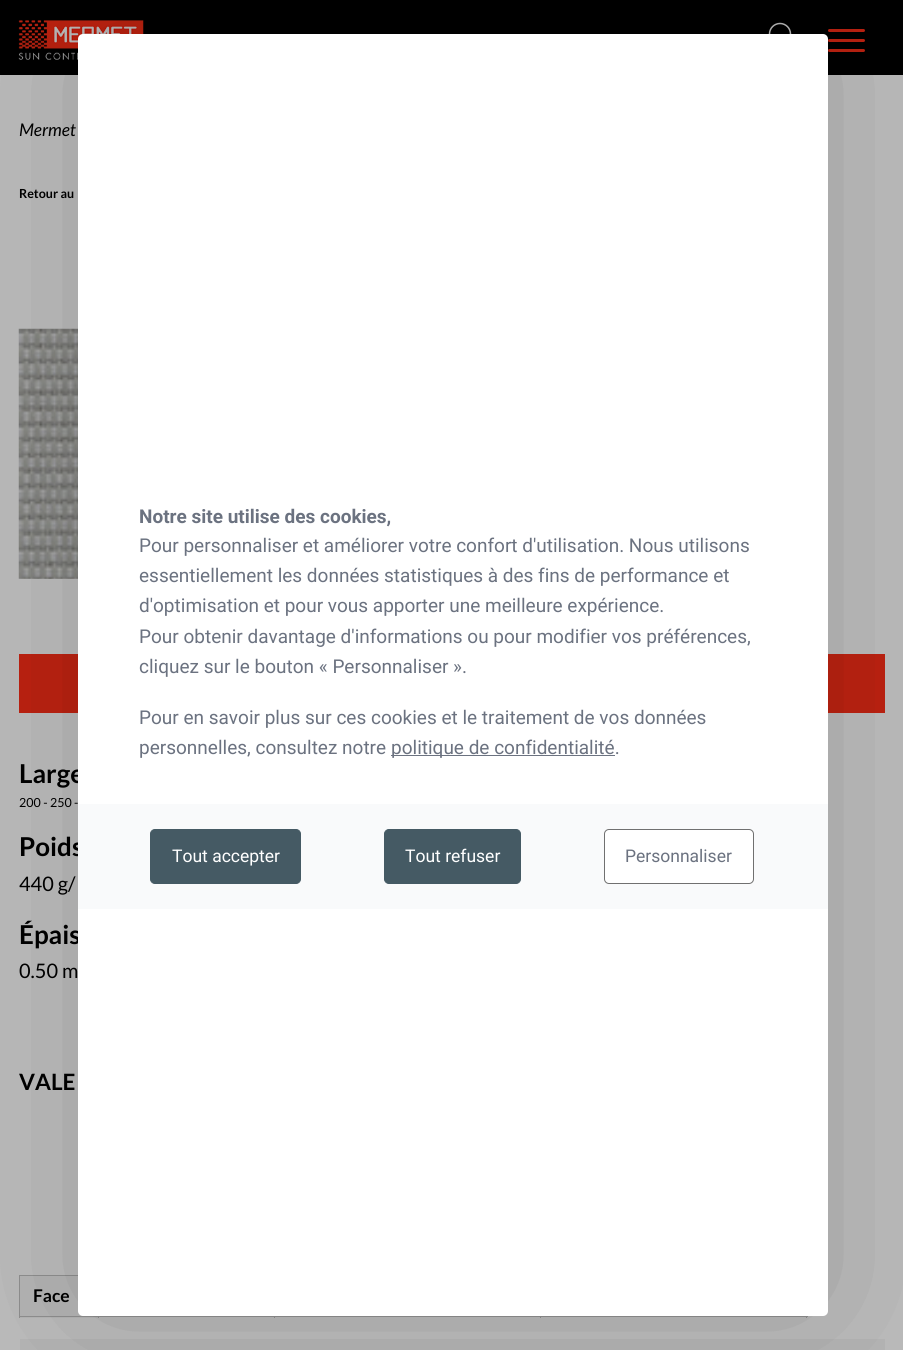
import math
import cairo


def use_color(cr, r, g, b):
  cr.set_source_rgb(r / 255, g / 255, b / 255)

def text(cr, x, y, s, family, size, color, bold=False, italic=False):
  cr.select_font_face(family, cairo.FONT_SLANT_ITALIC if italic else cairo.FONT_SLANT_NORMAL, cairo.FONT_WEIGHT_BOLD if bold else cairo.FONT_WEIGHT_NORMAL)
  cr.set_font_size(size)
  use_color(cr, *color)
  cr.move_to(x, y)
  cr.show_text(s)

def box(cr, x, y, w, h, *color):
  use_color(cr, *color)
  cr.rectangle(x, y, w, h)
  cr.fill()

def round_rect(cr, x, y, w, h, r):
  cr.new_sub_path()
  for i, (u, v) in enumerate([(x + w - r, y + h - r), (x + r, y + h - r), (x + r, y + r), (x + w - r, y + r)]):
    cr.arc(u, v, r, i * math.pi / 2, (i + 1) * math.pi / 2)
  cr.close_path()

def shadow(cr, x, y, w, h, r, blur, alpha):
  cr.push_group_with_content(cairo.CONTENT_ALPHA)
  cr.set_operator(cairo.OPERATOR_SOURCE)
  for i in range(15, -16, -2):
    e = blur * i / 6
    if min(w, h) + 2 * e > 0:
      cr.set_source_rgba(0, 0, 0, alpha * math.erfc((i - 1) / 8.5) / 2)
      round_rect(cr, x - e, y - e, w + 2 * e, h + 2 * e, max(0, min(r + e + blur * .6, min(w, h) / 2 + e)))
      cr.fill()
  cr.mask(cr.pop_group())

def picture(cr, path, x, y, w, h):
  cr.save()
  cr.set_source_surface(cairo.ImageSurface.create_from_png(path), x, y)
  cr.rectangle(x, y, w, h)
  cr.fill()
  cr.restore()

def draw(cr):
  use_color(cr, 191, 191, 191)
  cr.paint()
  box(cr, 0, 0, 903, 75, 0, 0, 0)
  picture(cr, "img_01.png", 18, 20, 126, 40)
  picture(cr, "img_02.png", 768, 22, 24, 12)
  use_color(cr, 191, 34, 17)
  round_rect(cr, 828, 29, 37, 3, 1.5)
  cr.fill()
  round_rect(cr, 828, 39, 37, 3, 1.5)
  cr.fill()
  round_rect(cr, 828, 49, 37, 3, 1.5)
  cr.fill()
  picture(cr, "img_03.png", 18, 328, 60, 251)
  box(cr, 19, 654, 866, 59, 191, 34, 17)
  box(cr, 20, 1276, 78, 42, 184, 184, 184)
  box(cr, 19, 1275, 59, 1, 146, 146, 146)
  box(cr, 19, 1316, 789, 1, 146, 146, 146)
  box(cr, 19, 1275, 1, 43, 146, 146, 146)
  box(cr, 806, 1317, 1, 1, 146, 146, 146)
  box(cr, 540, 1317, 1, 1, 146, 146, 146)
  box(cr, 98, 1317, 1, 1, 146, 146, 146)
  box(cr, 274, 1317, 1, 1, 146, 146, 146)
  box(cr, 20, 1339, 865, 11, 184, 184, 184)
  use_color(cr, 0, 0, 0)
  shadow(cr, 78, 34, 750, 1282, 5, 94, 0.2)
  text(cr, 19, 136, "Mermet", "Lato", 17.5, (0, 0, 0), italic=True)
  text(cr, 19, 198, "Retour au", "Lato", 12.5, (0, 0, 0), bold=True)
  text(cr, 19, 783, "Large", "Lato", 26, (0, 0, 0), bold=True)
  text(cr, 19, 807, "200 - 250 -", "Lato", 12.5, (0, 0, 0))
  text(cr, 19, 856, "Poids", "Lato", 26, (0, 0, 0), bold=True)
  text(cr, 19, 891, "440 g/", "Lato", 20, (0, 0, 0))
  text(cr, 19, 944, "Épais", "Lato", 26, (0, 0, 0), bold=True)
  text(cr, 19, 978, "0.50 m", "Lato", 20, (0, 0, 0))
  text(cr, 19, 1090, "VALE", "Lato", 22.5, (0, 0, 0), bold=True)
  text(cr, 33, 1302, "Face", "Lato", 17.5, (0, 0, 0), bold=True)
  use_color(cr, 255, 255, 255)
  round_rect(cr, 78, 34, 750, 1282, 5)
  cr.fill()
  text(cr, 139, 523, "Notre site utilise des cookies,", "Roboto", 19, (107, 114, 128), bold=True)
  text(cr, 139, 552, "Pour personnaliser et améliorer votre confort d'utilisation. Nous utilisons", "Roboto", 19, (107, 114, 128))
  text(cr, 139, 582, "essentiellement les données statistiques à des fins de performance et", "Roboto", 19, (107, 114, 128))
  text(cr, 139, 612, "d'optimisation et pour vous apporter une meilleure expérience.", "Roboto", 19, (107, 114, 128))
  text(cr, 139, 643, "Pour obtenir davantage d'informations ou pour modifier vos préférences,", "Roboto", 19, (107, 114, 128))
  text(cr, 139, 673, "cliquez sur le bouton « Personnaliser ».", "Roboto", 19, (107, 114, 128))
  text(cr, 139, 724, "Pour en savoir plus sur ces cookies et le traitement de vos données", "Roboto", 19, (107, 114, 128))
  text(cr, 139, 754, "personnelles, consultez notre", "Roboto", 19, (107, 114, 128))
  box(cr, 391, 755, 224, 1, 107, 114, 128)
  text(cr, 391, 754, "politique de confidentialité.", "Roboto", 19, (107, 114, 128))
  box(cr, 78, 804, 750, 105, 249, 250, 251)
  use_color(cr, 69, 90, 100)
  round_rect(cr, 150.5, 829.5, 150, 54, 4.5)
  cr.fill_preserve()
  cr.set_line_width(1)
  cr.stroke()
  text(cr, 172, 862, "Tout accepter", "Roboto", 17.5, (255, 255, 255))
  use_color(cr, 69, 90, 100)
  round_rect(cr, 384.5, 829.5, 136, 54, 4.5)
  cr.fill_preserve()
  cr.stroke()
  text(cr, 405, 862, "Tout refuser", "Roboto", 17.5, (255, 255, 255))
  round_rect(cr, 604.5, 829.5, 149, 54, 4.5)
  cr.fill_preserve()
  use_color(cr, 112, 112, 112)
  cr.stroke()
  text(cr, 625, 862, "Personnaliser", "Roboto", 17.5, (107, 114, 128))


surface = cairo.ImageSurface(cairo.FORMAT_RGB24, 903, 1350)
cr = cairo.Context(surface)
options = cairo.FontOptions()
options.set_hint_metrics(cairo.HINT_METRICS_OFF)
options.set_hint_style(cairo.HINT_STYLE_NONE)
cr.set_font_options(options)
cr.set_miter_limit(4)
draw(cr)
surface.write_to_png("out.png")
